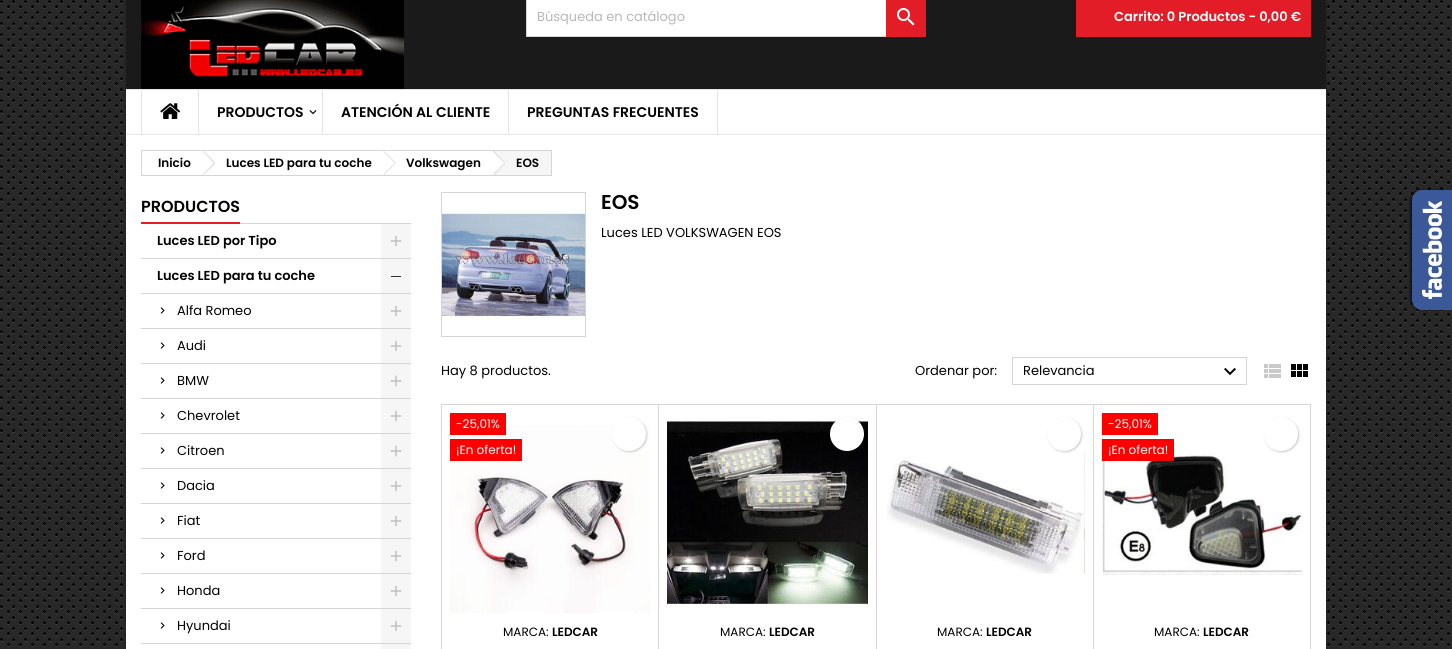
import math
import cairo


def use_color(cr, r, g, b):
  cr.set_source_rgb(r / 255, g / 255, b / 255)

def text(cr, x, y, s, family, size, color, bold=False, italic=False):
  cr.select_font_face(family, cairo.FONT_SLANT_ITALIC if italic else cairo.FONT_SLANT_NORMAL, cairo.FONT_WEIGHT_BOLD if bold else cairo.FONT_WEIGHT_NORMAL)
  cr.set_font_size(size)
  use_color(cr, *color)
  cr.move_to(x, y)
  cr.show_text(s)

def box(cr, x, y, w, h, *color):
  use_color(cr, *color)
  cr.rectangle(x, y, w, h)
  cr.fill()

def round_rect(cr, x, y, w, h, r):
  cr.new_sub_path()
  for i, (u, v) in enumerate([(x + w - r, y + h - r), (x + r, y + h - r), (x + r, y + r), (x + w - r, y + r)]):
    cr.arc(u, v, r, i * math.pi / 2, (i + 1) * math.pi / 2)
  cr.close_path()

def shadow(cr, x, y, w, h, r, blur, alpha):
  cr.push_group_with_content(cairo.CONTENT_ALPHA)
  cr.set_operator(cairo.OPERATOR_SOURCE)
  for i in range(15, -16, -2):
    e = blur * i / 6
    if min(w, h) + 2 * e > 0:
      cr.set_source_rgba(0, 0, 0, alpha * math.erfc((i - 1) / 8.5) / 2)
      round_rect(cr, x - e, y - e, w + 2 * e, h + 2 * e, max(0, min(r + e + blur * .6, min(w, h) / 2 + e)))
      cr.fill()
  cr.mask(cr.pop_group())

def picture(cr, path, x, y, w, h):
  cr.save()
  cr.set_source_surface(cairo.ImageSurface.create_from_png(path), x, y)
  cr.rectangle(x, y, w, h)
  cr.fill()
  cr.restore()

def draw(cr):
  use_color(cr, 40, 40, 40)
  cr.paint()
  picture(cr, "img_01.png", 0, 0, 1450, 647)
  use_color(cr, 0, 0, 0)
  shadow(cr, 126, -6, 1200, 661, 0, 2, 0.2)
  box(cr, 126, 90, 1200, 559, 255, 255, 255)
  box(cr, 126, 0, 1200, 89, 27, 26, 27)
  picture(cr, "img_02.png", 141, 0, 263, 89)
  box(cr, 527, 0, 359, 36, 255, 255, 255)
  cr.rectangle(526.5, -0.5, 399, 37)
  use_color(cr, 214, 212, 212)
  cr.set_line_width(1)
  cr.stroke()
  box(cr, 886, 0, 40, 37, 227, 29, 39)
  picture(cr, "img_03.png", 897, 8, 18, 18)
  box(cr, 1076, 0, 235, 37, 227, 29, 39)
  box(cr, 126, 89, 1200, 1, 230, 230, 230)
  box(cr, 126, 134, 1200, 1, 230, 230, 230)
  box(cr, 141, 90, 1, 44, 230, 230, 230)
  picture(cr, "img_04.png", 160, 103, 21, 16)
  box(cr, 198, 90, 1, 44, 230, 230, 230)
  picture(cr, "img_05.png", 309, 110, 8, 5)
  box(cr, 322, 90, 1, 44, 230, 230, 230)
  box(cr, 717, 90, 1, 44, 230, 230, 230)
  box(cr, 508, 90, 1, 44, 230, 230, 230)
  cr.rectangle(141.5, 150.5, 410, 25)
  use_color(cr, 214, 212, 212)
  cr.stroke()
  box(cr, 494, 151, 57, 24, 246, 246, 246)
  use_color(cr, 255, 255, 255)
  cr.new_path()
  cr.move_to(494.5, 151.5)
  cr.line_to(504.5, 161.5)
  cr.curve_to(505.5, 162.5, 505.5, 163.5, 504.5, 164.5)
  cr.line_to(494.5, 174.5)
  cr.curve_to(494, 175, 492.5, 175, 492, 174.5)
  cr.line_to(482, 164.5)
  cr.curve_to(481, 163.5, 481, 162.5, 482, 161.5)
  cr.line_to(492, 151.5)
  cr.curve_to(492.5, 151, 494, 151, 494.5, 151.5)
  cr.close_path()
  cr.fill()
  use_color(cr, 214, 212, 212)
  cr.new_path()
  cr.move_to(494, 151)
  cr.line_to(505, 162.5)
  cr.line_to(504.5, 163)
  cr.line_to(493, 151.5)
  cr.close_path()
  cr.move_to(504.5, 163)
  cr.line_to(505, 163.5)
  cr.line_to(494, 175)
  cr.line_to(493, 174.5)
  cr.close_path()
  cr.fill()
  box(cr, 240, 223, 171, 1, 214, 212, 212)
  box(cr, 141, 222, 99, 2, 227, 29, 39)
  box(cr, 141, 258, 270, 1, 214, 212, 212)
  box(cr, 381, 224, 30, 34, 246, 246, 246)
  picture(cr, "img_06.png", 390, 235, 12, 12)
  box(cr, 141, 293, 270, 1, 214, 212, 212)
  box(cr, 381, 259, 30, 34, 246, 246, 246)
  box(cr, 391, 276, 10, 1, 51, 51, 51)
  box(cr, 141, 328, 270, 1, 214, 212, 212)
  picture(cr, "img_07.png", 160, 307, 5, 7)
  box(cr, 381, 294, 30, 34, 246, 246, 246)
  picture(cr, "img_06.png", 390, 305, 12, 12)
  box(cr, 141, 363, 270, 1, 214, 212, 212)
  picture(cr, "img_07.png", 160, 342, 5, 7)
  box(cr, 381, 329, 30, 34, 246, 246, 246)
  picture(cr, "img_06.png", 390, 340, 12, 12)
  box(cr, 141, 398, 270, 1, 214, 212, 212)
  picture(cr, "img_07.png", 160, 377, 5, 7)
  box(cr, 381, 364, 30, 34, 246, 246, 246)
  picture(cr, "img_06.png", 390, 375, 12, 12)
  box(cr, 141, 433, 270, 1, 214, 212, 212)
  picture(cr, "img_07.png", 160, 412, 5, 7)
  box(cr, 381, 399, 30, 34, 246, 246, 246)
  picture(cr, "img_06.png", 390, 410, 12, 12)
  box(cr, 141, 468, 270, 1, 214, 212, 212)
  picture(cr, "img_07.png", 160, 447, 5, 7)
  box(cr, 381, 434, 30, 34, 246, 246, 246)
  picture(cr, "img_06.png", 390, 445, 12, 12)
  box(cr, 141, 503, 270, 1, 214, 212, 212)
  picture(cr, "img_07.png", 160, 482, 5, 7)
  box(cr, 381, 469, 30, 34, 246, 246, 246)
  picture(cr, "img_06.png", 390, 480, 12, 12)
  box(cr, 141, 538, 270, 1, 214, 212, 212)
  picture(cr, "img_07.png", 160, 517, 5, 7)
  box(cr, 381, 504, 30, 34, 246, 246, 246)
  picture(cr, "img_06.png", 390, 515, 12, 12)
  box(cr, 141, 573, 270, 1, 214, 212, 212)
  picture(cr, "img_07.png", 160, 552, 5, 7)
  box(cr, 381, 539, 30, 34, 246, 246, 246)
  picture(cr, "img_06.png", 390, 550, 12, 12)
  box(cr, 141, 608, 270, 1, 214, 212, 212)
  picture(cr, "img_07.png", 160, 587, 5, 7)
  box(cr, 381, 574, 30, 34, 246, 246, 246)
  picture(cr, "img_06.png", 390, 585, 12, 12)
  box(cr, 141, 643, 270, 1, 214, 212, 212)
  picture(cr, "img_07.png", 160, 622, 5, 7)
  box(cr, 381, 609, 30, 34, 246, 246, 246)
  picture(cr, "img_06.png", 390, 620, 12, 12)
  box(cr, 381, 644, 30, 5, 246, 246, 246)
  cr.rectangle(441.5, 192.5, 144, 144)
  use_color(cr, 214, 212, 212)
  cr.stroke()
  picture(cr, "img_08.png", 442, 210, 143, 109)
  cr.rectangle(1012.5, 357.5, 234, 27)
  cr.stroke()
  picture(cr, "img_09.png", 1224, 367, 12, 9)
  picture(cr, "img_10.png", 1264, 364, 17, 14)
  picture(cr, "img_11.png", 1291, 364, 17, 13)
  cr.rectangle(441.5, 404.5, 217, 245)
  cr.stroke()
  picture(cr, "img_12.png", 450, 425, 200, 188)
  box(cr, 450, 413, 56, 22, 255, 0, 0)
  box(cr, 450, 439, 72, 22, 255, 0, 0)
  use_color(cr, 0, 0, 0)
  shadow(cr, 613, 418, 34, 34, 17, 1, 0.2)
  use_color(cr, 255, 255, 255)
  cr.arc(629, 434, 17, 0, 2 * math.pi)
  cr.fill()
  cr.rectangle(658.5, 404.5, 218, 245)
  use_color(cr, 214, 212, 212)
  cr.stroke()
  picture(cr, "img_13.png", 667, 421, 201, 185)
  use_color(cr, 0, 0, 0)
  shadow(cr, 831, 418, 34, 34, 17, 1, 0.2)
  use_color(cr, 255, 255, 255)
  cr.arc(847, 434, 17, 0, 2 * math.pi)
  cr.fill()
  cr.rectangle(876.5, 404.5, 217, 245)
  use_color(cr, 214, 212, 212)
  cr.stroke()
  picture(cr, "img_14.png", 887, 452, 198, 122)
  use_color(cr, 0, 0, 0)
  shadow(cr, 1048, 418, 34, 34, 17, 1, 0.2)
  use_color(cr, 255, 255, 255)
  cr.arc(1064, 434, 17, 0, 2 * math.pi)
  cr.fill()
  cr.rectangle(1093.5, 404.5, 217, 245)
  use_color(cr, 214, 212, 212)
  cr.stroke()
  box(cr, 1102, 413, 56, 22, 255, 0, 0)
  picture(cr, "img_15.png", 1102, 450, 200, 126)
  box(cr, 1102, 439, 72, 22, 255, 0, 0)
  use_color(cr, 0, 0, 0)
  shadow(cr, 1265, 418, 34, 34, 17, 1, 0.2)
  use_color(cr, 255, 255, 255)
  cr.arc(1281, 434, 17, 0, 2 * math.pi)
  cr.fill()
  use_color(cr, 0, 0, 0)
  shadow(cr, 1410, 190, 40, 120, 10, 1, 0.5)
  use_color(cr, 59, 89, 152)
  cr.new_path()
  cr.move_to(1422, 190)
  cr.line_to(1452, 190)
  cr.line_to(1452, 310)
  cr.line_to(1422, 310)
  cr.curve_to(1416.5, 310, 1412, 305.5, 1412, 300)
  cr.line_to(1412, 200)
  cr.curve_to(1412, 194.5, 1416.5, 190, 1422, 190)
  cr.close_path()
  cr.fill()
  picture(cr, "img_16.png", 1422, 201, 20, 98)
  text(cr, 537, 21, "Búsqueda en catálogo", "Poppins", 13, (183, 183, 183))
  text(cr, 1114, 21, "Carrito: 0 Productos - 0,00 €", "Poppins SemiBold", 13, (255, 255, 255))
  text(cr, 217, 117, "PRODUCTOS", "Poppins SemiBold", 14, (0, 0, 0))
  text(cr, 341, 117, "ATENCIÓN AL CLIENTE", "Poppins SemiBold", 14, (0, 0, 0))
  text(cr, 527, 117, "PREGUNTAS FRECUENTES", "Poppins SemiBold", 14, (0, 0, 0))
  text(cr, 158, 167, "Inicio", "Poppins SemiBold", 12, (0, 0, 0))
  use_color(cr, 255, 255, 255)
  cr.new_path()
  cr.move_to(204, 151.5)
  cr.line_to(214, 161.5)
  cr.curve_to(215, 162.5, 215, 163.5, 214, 164.5)
  cr.line_to(204, 174.5)
  cr.curve_to(203.5, 175, 202, 175, 201.5, 174.5)
  cr.line_to(191.5, 164.5)
  cr.curve_to(190.5, 163.5, 190.5, 162.5, 191.5, 161.5)
  cr.line_to(201.5, 151.5)
  cr.curve_to(202, 151, 203.5, 151, 204, 151.5)
  cr.close_path()
  cr.fill()
  use_color(cr, 214, 212, 212)
  cr.new_path()
  cr.move_to(203.5, 151)
  cr.line_to(215, 162.5)
  cr.line_to(214, 163)
  cr.line_to(203, 151.5)
  cr.close_path()
  cr.move_to(214, 163)
  cr.line_to(215, 163.5)
  cr.line_to(203.5, 175)
  cr.line_to(203, 174.5)
  cr.close_path()
  cr.fill()
  text(cr, 226, 167, "Luces LED para tu coche", "Poppins SemiBold", 12, (0, 0, 0))
  use_color(cr, 255, 255, 255)
  cr.new_path()
  cr.move_to(385, 151.5)
  cr.line_to(395, 161.5)
  cr.curve_to(395.5, 162.5, 395.5, 163.5, 395, 164.5)
  cr.line_to(385, 174.5)
  cr.curve_to(384, 175, 383, 175, 382, 174.5)
  cr.line_to(372, 164.5)
  cr.curve_to(371.5, 163.5, 371.5, 162.5, 372, 161.5)
  cr.line_to(382, 151.5)
  cr.curve_to(383, 151, 384, 151, 385, 151.5)
  cr.close_path()
  cr.fill()
  use_color(cr, 214, 212, 212)
  cr.new_path()
  cr.move_to(384, 151)
  cr.line_to(395.5, 162.5)
  cr.line_to(395, 163)
  cr.line_to(383.5, 151.5)
  cr.close_path()
  cr.move_to(395, 163)
  cr.line_to(395.5, 163.5)
  cr.line_to(384, 175)
  cr.line_to(383.5, 174.5)
  cr.close_path()
  cr.fill()
  text(cr, 406, 167, "Volkswagen", "Poppins SemiBold", 12, (0, 0, 0))
  text(cr, 516, 167, "EOS", "Poppins SemiBold", 12, (0, 0, 0))
  text(cr, 141, 212, "PRODUCTOS", "Poppins SemiBold", 16, (0, 0, 0))
  text(cr, 157, 245, "Luces LED por Tipo", "Poppins SemiBold", 13, (0, 0, 0))
  text(cr, 157, 280, "Luces LED para tu coche", "Poppins SemiBold", 13, (0, 0, 0))
  text(cr, 177, 315, "Alfa Romeo", "Poppins", 13, (0, 0, 0))
  text(cr, 177, 350, "Audi", "Poppins", 13, (0, 0, 0))
  text(cr, 177, 385, "BMW", "Poppins", 13, (0, 0, 0))
  text(cr, 177, 420, "Chevrolet", "Poppins", 13, (0, 0, 0))
  text(cr, 177, 455, "Citroen", "Poppins", 13, (0, 0, 0))
  text(cr, 177, 490, "Dacia", "Poppins", 13, (0, 0, 0))
  text(cr, 177, 525, "Fiat", "Poppins", 13, (0, 0, 0))
  text(cr, 177, 560, "Ford", "Poppins", 13, (0, 0, 0))
  text(cr, 177, 595, "Honda", "Poppins", 13, (0, 0, 0))
  text(cr, 177, 630, "Hyundai", "Poppins", 13, (0, 0, 0))
  text(cr, 601, 209, "EOS", "Poppins SemiBold", 20, (0, 0, 0))
  text(cr, 601, 237, "Luces LED VOLKSWAGEN EOS", "Poppins", 13, (0, 0, 0))
  text(cr, 441, 375, "Hay 8 productos.", "Poppins", 13, (0, 0, 0))
  text(cr, 915, 375, "Ordenar por:", "Poppins", 13, (0, 0, 0))
  text(cr, 1023, 375, "Relevancia", "Poppins", 13, (0, 0, 0))
  text(cr, 456, 428, "-25,01%", "Poppins", 12, (255, 255, 255))
  text(cr, 456, 454, "¡En oferta!", "Poppins", 12, (255, 255, 255))
  text(cr, 503, 636, "MARCA:", "Poppins", 12, (0, 0, 0))
  text(cr, 552, 636, "LEDCAR", "Poppins SemiBold", 12, (0, 0, 0))
  text(cr, 720, 636, "MARCA:", "Poppins", 12, (0, 0, 0))
  text(cr, 769, 636, "LEDCAR", "Poppins SemiBold", 12, (0, 0, 0))
  text(cr, 937, 636, "MARCA:", "Poppins", 12, (0, 0, 0))
  text(cr, 986, 636, "LEDCAR", "Poppins SemiBold", 12, (0, 0, 0))
  text(cr, 1108, 428, "-25,01%", "Poppins", 12, (255, 255, 255))
  text(cr, 1108, 454, "¡En oferta!", "Poppins", 12, (255, 255, 255))
  text(cr, 1154, 636, "MARCA:", "Poppins", 12, (0, 0, 0))
  text(cr, 1203, 636, "LEDCAR", "Poppins SemiBold", 12, (0, 0, 0))


surface = cairo.ImageSurface(cairo.FORMAT_RGB24, 1452, 649)
cr = cairo.Context(surface)
options = cairo.FontOptions()
options.set_hint_metrics(cairo.HINT_METRICS_OFF)
options.set_hint_style(cairo.HINT_STYLE_NONE)
cr.set_font_options(options)
cr.set_miter_limit(4)
draw(cr)
surface.write_to_png("out.png")
